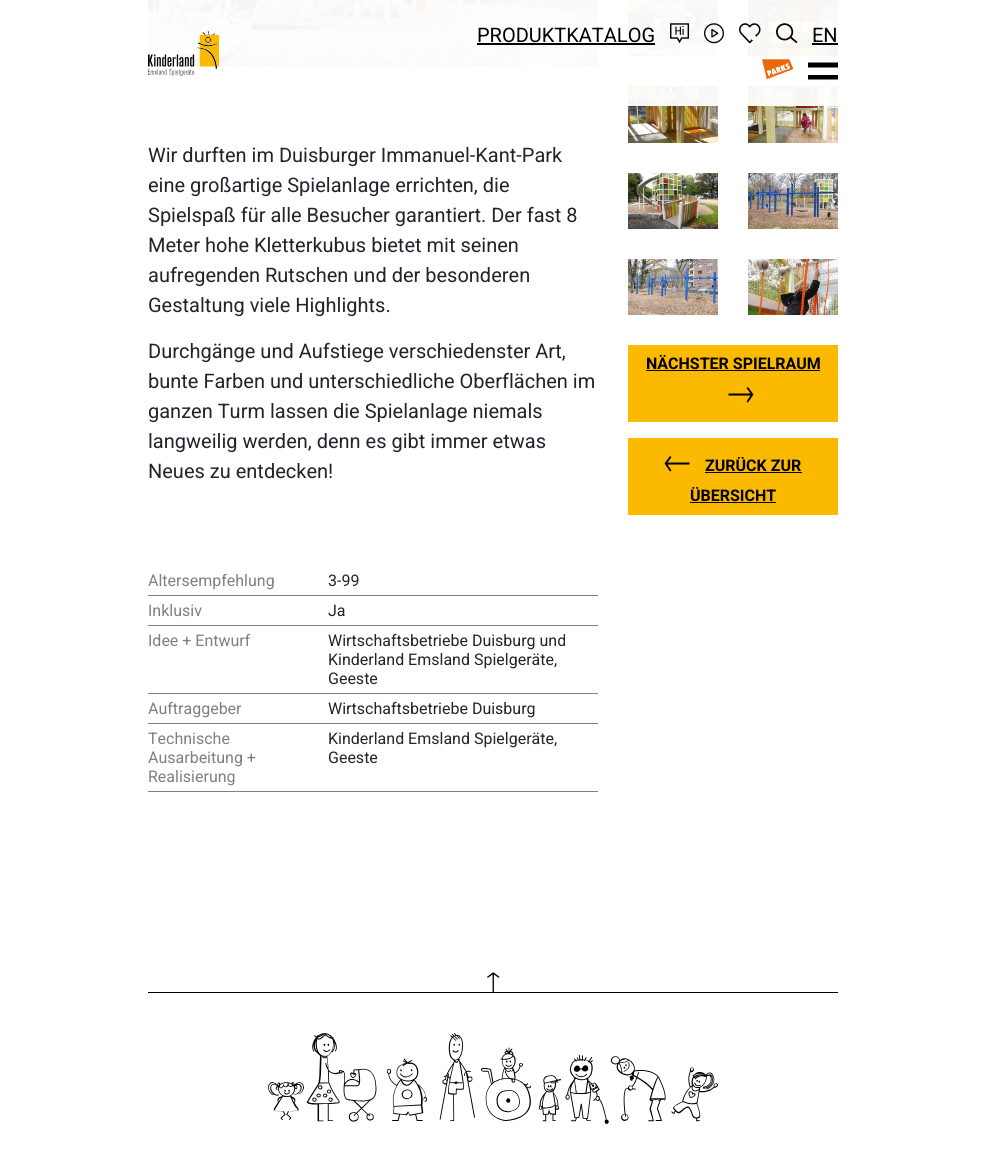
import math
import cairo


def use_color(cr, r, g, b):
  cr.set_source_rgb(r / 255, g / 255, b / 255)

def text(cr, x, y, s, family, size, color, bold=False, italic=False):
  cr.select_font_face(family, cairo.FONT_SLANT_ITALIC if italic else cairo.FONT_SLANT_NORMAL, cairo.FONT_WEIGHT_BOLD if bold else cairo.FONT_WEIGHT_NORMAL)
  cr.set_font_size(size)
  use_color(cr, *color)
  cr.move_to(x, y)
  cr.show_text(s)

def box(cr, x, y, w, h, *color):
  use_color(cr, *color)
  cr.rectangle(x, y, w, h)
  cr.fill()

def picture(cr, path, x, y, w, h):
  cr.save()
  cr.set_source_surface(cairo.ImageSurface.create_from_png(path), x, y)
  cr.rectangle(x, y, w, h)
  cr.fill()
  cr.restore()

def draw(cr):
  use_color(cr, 255, 255, 255)
  cr.paint()
  picture(cr, "img_07.png", 148, 0, 450, 66)
  picture(cr, "img_08.png", 628, 0, 90, 56)
  picture(cr, "img_09.png", 748, 0, 90, 56)
  picture(cr, "img_10.png", 628, 86, 90, 57)
  picture(cr, "img_11.png", 748, 86, 90, 57)
  cr.set_source_rgba(1, 1, 1, 0.95)
  cr.rectangle(148, 0, 690, 106)
  cr.fill()
  picture(cr, "img_01.png", 148, 31, 71, 45)
  box(cr, 477, 43, 178, 2, 0, 0, 0)
  picture(cr, "img_02.png", 670, 23, 20, 21)
  picture(cr, "img_03.png", 704, 23, 20, 21)
  picture(cr, "img_04.png", 739, 23, 22, 21)
  box(cr, 752, 36, 4, 4, 255, 255, 255)
  picture(cr, "img_05.png", 776, 23, 22, 21)
  box(cr, 812, 43, 26, 2, 0, 0, 0)
  picture(cr, "img_06.png", 762, 59, 32, 21)
  cr.new_path()
  cr.move_to(808, 62.5)
  cr.line_to(838, 62.5)
  cr.line_to(838, 67.5)
  cr.line_to(808, 67.5)
  cr.close_path()
  cr.move_to(808, 75)
  cr.line_to(838, 75)
  cr.line_to(838, 79.5)
  cr.line_to(808, 79.5)
  cr.close_path()
  cr.fill()
  box(cr, 148, 595, 450, 1, 128, 128, 128)
  box(cr, 148, 625, 450, 1, 128, 128, 128)
  box(cr, 148, 693, 450, 1, 128, 128, 128)
  box(cr, 148, 723, 450, 1, 128, 128, 128)
  box(cr, 148, 791, 450, 1, 128, 128, 128)
  picture(cr, "img_12.png", 628, 173, 90, 56)
  picture(cr, "img_13.png", 748, 173, 90, 56)
  picture(cr, "img_14.png", 628, 259, 90, 56)
  picture(cr, "img_15.png", 748, 259, 90, 56)
  box(cr, 628, 345, 210, 77, 251, 185, 0)
  box(cr, 646, 370, 174, 1, 0, 0, 0)
  cr.new_path()
  cr.move_to(748, 387)
  cr.line_to(746.5, 388)
  cr.line_to(750.5, 393.5)
  cr.line_to(728.5, 393.5)
  cr.line_to(728.5, 395.5)
  cr.line_to(750.5, 395.5)
  cr.line_to(746.5, 401.5)
  cr.line_to(748, 402.5)
  cr.line_to(753.5, 394.5)
  cr.close_path()
  cr.fill()
  box(cr, 628, 438, 210, 77, 251, 185, 0)
  use_color(cr, 0, 0, 0)
  cr.new_path()
  cr.move_to(670, 456)
  cr.line_to(671.5, 457)
  cr.line_to(667.5, 462.5)
  cr.line_to(689.5, 462.5)
  cr.line_to(689.5, 464.5)
  cr.line_to(667.5, 464.5)
  cr.line_to(671.5, 470.5)
  cr.line_to(670, 471.5)
  cr.line_to(664.5, 463.5)
  cr.close_path()
  cr.fill()
  box(cr, 705, 472, 97, 1, 0, 0, 0)
  box(cr, 690, 502, 86, 1, 0, 0, 0)
  box(cr, 148, 992, 690, 1, 0, 0, 0)
  picture(cr, "img_16.png", 487, 972, 13, 20)
  picture(cr, "img_17.png", 268, 1033, 450, 91)
  text(cr, 477, 42, "PRODUKTKATALOG", "Roboto", 20, (0, 0, 0))
  text(cr, 812, 42, "EN", "Roboto", 20, (0, 0, 0))
  text(cr, 148, 162, "Wir durften im Duisburger Immanuel-Kant-Park", "Roboto", 20, (33, 37, 41))
  text(cr, 148, 192, "eine großartige Spielanlage errichten, die", "Roboto", 20, (33, 37, 41))
  text(cr, 148, 222, "Spielspaß für alle Besucher garantiert. Der fast 8", "Roboto", 20, (33, 37, 41))
  text(cr, 148, 252, "Meter hohe Kletterkubus bietet mit seinen", "Roboto", 20, (33, 37, 41))
  text(cr, 148, 282, "aufregenden Rutschen und der besonderen", "Roboto", 20, (33, 37, 41))
  text(cr, 148, 312, "Gestaltung viele Highlights.", "Roboto", 20, (33, 37, 41))
  text(cr, 148, 358, "Durchgänge und Aufstiege verschiedenster Art,", "Roboto", 20, (33, 37, 41))
  text(cr, 148, 388, "bunte Farben und unterschiedliche Oberflächen im", "Roboto", 20, (33, 37, 41))
  text(cr, 148, 418, "ganzen Turm lassen die Spielanlage niemals", "Roboto", 20, (33, 37, 41))
  text(cr, 148, 448, "langweilig werden, denn es gibt immer etwas", "Roboto", 20, (33, 37, 41))
  text(cr, 148, 478, "Neues zu entdecken!", "Roboto", 20, (33, 37, 41))
  text(cr, 148, 586, "Altersempfehlung", "Roboto", 16, (128, 128, 128))
  text(cr, 328, 586, "3-99", "Roboto", 16, (33, 37, 41))
  text(cr, 148, 616, "Inklusiv", "Roboto", 16, (128, 128, 128))
  text(cr, 328, 616, "Ja", "Roboto", 16, (33, 37, 41))
  text(cr, 148, 646, "Idee + Entwurf", "Roboto", 16, (128, 128, 128))
  text(cr, 328, 646, "Wirtschaftsbetriebe Duisburg und", "Roboto", 16, (33, 37, 41))
  text(cr, 328, 665, "Kinderland Emsland Spielgeräte,", "Roboto", 16, (33, 37, 41))
  text(cr, 328, 684, "Geeste", "Roboto", 16, (33, 37, 41))
  text(cr, 148, 714, "Auftraggeber", "Roboto", 16, (128, 128, 128))
  text(cr, 328, 714, "Wirtschaftsbetriebe Duisburg", "Roboto", 16, (33, 37, 41))
  text(cr, 148, 744, "Technische", "Roboto", 16, (128, 128, 128))
  text(cr, 148, 763, "Ausarbeitung +", "Roboto", 16, (128, 128, 128))
  text(cr, 148, 782, "Realisierung", "Roboto", 16, (128, 128, 128))
  text(cr, 328, 744, "Kinderland Emsland Spielgeräte,", "Roboto", 16, (33, 37, 41))
  text(cr, 328, 763, "Geeste", "Roboto", 16, (33, 37, 41))
  text(cr, 646, 369, "NÄCHSTER SPIELRAUM", "Roboto", 16, (0, 0, 0), bold=True)
  text(cr, 705, 471, "ZURÜCK ZUR", "Roboto", 16, (0, 0, 0), bold=True)
  text(cr, 690, 501, "ÜBERSICHT", "Roboto", 16, (0, 0, 0), bold=True)


surface = cairo.ImageSurface(cairo.FORMAT_RGB24, 986, 1149)
cr = cairo.Context(surface)
options = cairo.FontOptions()
options.set_hint_metrics(cairo.HINT_METRICS_OFF)
options.set_hint_style(cairo.HINT_STYLE_NONE)
cr.set_font_options(options)
cr.set_miter_limit(4)
draw(cr)
surface.write_to_png("out.png")
